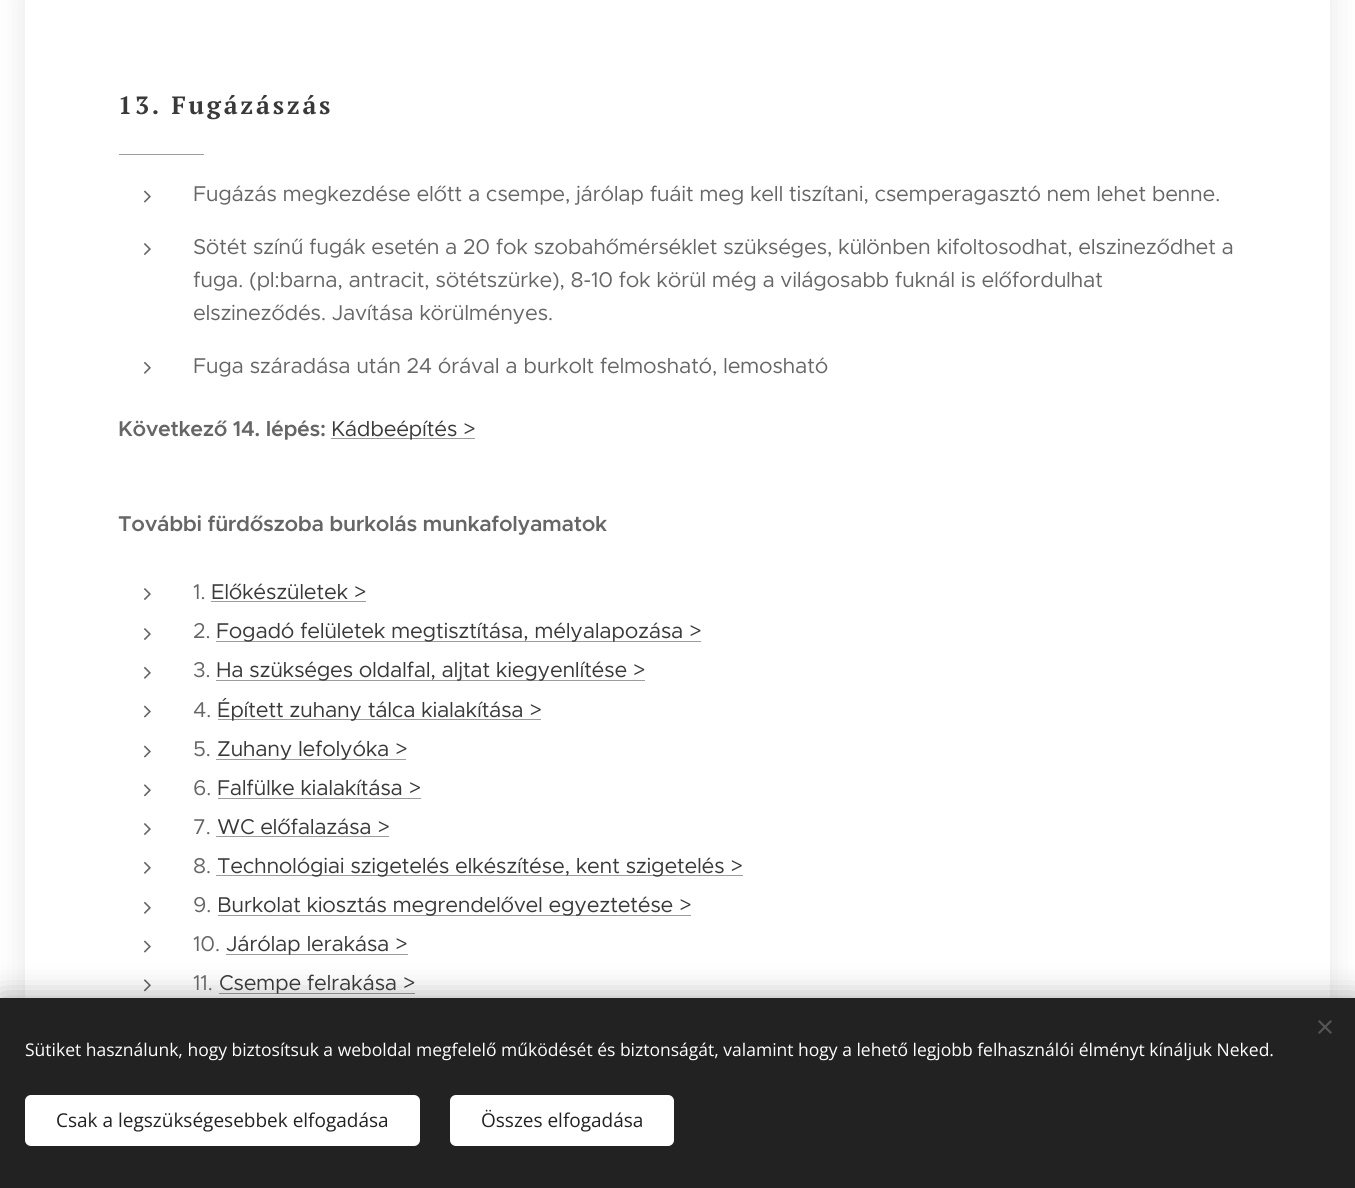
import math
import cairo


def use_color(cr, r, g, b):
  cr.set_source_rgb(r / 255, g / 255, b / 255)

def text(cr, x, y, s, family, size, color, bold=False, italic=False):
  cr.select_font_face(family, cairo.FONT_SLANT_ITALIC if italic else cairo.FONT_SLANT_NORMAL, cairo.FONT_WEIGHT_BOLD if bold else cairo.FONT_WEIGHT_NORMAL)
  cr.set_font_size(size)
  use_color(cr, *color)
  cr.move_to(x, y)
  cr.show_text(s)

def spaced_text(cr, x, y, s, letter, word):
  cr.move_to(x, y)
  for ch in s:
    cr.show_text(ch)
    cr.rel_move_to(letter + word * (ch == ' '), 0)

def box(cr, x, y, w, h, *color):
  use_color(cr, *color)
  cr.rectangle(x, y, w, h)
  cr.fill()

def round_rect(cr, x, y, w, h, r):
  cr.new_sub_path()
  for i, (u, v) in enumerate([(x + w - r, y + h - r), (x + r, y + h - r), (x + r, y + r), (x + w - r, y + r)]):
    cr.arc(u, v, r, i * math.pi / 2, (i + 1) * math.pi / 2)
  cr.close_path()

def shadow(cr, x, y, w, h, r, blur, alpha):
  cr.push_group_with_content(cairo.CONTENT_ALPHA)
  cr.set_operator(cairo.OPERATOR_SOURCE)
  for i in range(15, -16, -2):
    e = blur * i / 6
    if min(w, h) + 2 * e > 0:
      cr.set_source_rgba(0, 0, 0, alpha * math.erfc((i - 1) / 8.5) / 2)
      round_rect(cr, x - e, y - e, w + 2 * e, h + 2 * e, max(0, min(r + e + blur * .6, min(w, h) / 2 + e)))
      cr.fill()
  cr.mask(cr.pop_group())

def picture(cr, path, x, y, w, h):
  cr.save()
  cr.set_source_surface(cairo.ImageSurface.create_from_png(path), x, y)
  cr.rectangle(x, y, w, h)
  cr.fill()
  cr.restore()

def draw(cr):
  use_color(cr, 255, 255, 255)
  cr.paint()
  cr.save()
  cr.set_fill_rule(cairo.FILL_RULE_EVEN_ODD)
  cr.new_path()
  cr.move_to(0, 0)
  cr.line_to(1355, 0)
  cr.line_to(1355, 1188)
  cr.line_to(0, 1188)
  cr.close_path()
  cr.move_to(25, -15)
  cr.line_to(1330, -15)
  cr.line_to(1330, 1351)
  cr.line_to(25, 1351)
  cr.close_path()
  cr.clip()
  use_color(cr, 0, 0, 0)
  shadow(cr, 25, -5, 1305, 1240, 0, 15.5, 0.1)
  cr.restore()
  box(cr, 119, 154, 85, 1, 157, 157, 157)
  picture(cr, "img_01.png", 144, 190, 7, 13)
  picture(cr, "img_02.png", 144, 243, 7, 12)
  picture(cr, "img_03.png", 144, 361, 7, 13)
  box(cr, 331, 438, 144, 1, 156, 156, 156)
  picture(cr, "img_02.png", 144, 588, 7, 12)
  box(cr, 211, 601, 155, 1, 156, 156, 156)
  picture(cr, "img_02.png", 144, 628, 7, 12)
  box(cr, 216, 641, 485, 1, 156, 156, 156)
  picture(cr, "img_03.png", 144, 666, 7, 13)
  box(cr, 216, 680, 429, 1, 156, 156, 156)
  picture(cr, "img_01.png", 144, 705, 7, 13)
  box(cr, 218, 719, 323, 1, 156, 156, 156)
  picture(cr, "img_01.png", 144, 745, 7, 13)
  box(cr, 216, 759, 190, 1, 156, 156, 156)
  picture(cr, "img_04.png", 144, 784, 7, 13)
  box(cr, 218, 798, 203, 1, 156, 156, 156)
  picture(cr, "img_02.png", 144, 823, 7, 12)
  box(cr, 216, 836, 173, 1, 156, 156, 156)
  picture(cr, "img_03.png", 144, 861, 7, 13)
  box(cr, 216, 875, 527, 1, 156, 156, 156)
  picture(cr, "img_03.png", 144, 901, 7, 13)
  box(cr, 218, 915, 473, 1, 156, 156, 156)
  picture(cr, "img_01.png", 144, 940, 7, 13)
  box(cr, 226, 954, 182, 1, 156, 156, 156)
  picture(cr, "img_04.png", 144, 979, 7, 13)
  box(cr, 219, 993, 196, 1, 156, 156, 156)
  use_color(cr, 0, 0, 0)
  shadow(cr, 0, 998, 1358, 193, 0, 15.5, 0.33)
  box(cr, 0, 998, 1355, 190, 34, 34, 34)
  use_color(cr, 85, 85, 85)
  cr.new_path()
  cr.move_to(1318, 1032.5)
  cr.line_to(1330.5, 1020)
  cr.line_to(1332, 1021.5)
  cr.line_to(1319.5, 1034)
  cr.close_path()
  cr.fill()
  cr.new_path()
  cr.move_to(1319.5, 1020)
  cr.line_to(1332, 1032.5)
  cr.line_to(1330.5, 1034)
  cr.line_to(1318, 1021.5)
  cr.close_path()
  cr.fill()
  use_color(cr, 255, 255, 255)
  round_rect(cr, 25, 1095, 395, 51, 6)
  cr.fill()
  round_rect(cr, 450, 1095, 224, 51, 6)
  cr.fill()
  cr.select_font_face("PT Serif", cairo.FONT_SLANT_NORMAL, cairo.FONT_WEIGHT_BOLD)
  cr.set_font_size(25)
  use_color(cr, 57, 57, 57)
  spaced_text(cr, 118, 114, "13. Fugázászás", 2.75, 0)
  cr.select_font_face("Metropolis")
  cr.set_font_size(21.5)
  use_color(cr, 102, 102, 102)
  spaced_text(cr, 193, 201, "Fugázás megkezdése előtt a csempe, járólap fuáit meg kell tiszítani, csemperagasztó nem lehet benne.", -0.32, 0)
  spaced_text(cr, 193, 254, "Sötét színű fugák esetén a 20 fok szobahőmérséklet szükséges, különben kifoltosodhat, elszineződhet a", -0.32, 0)
  spaced_text(cr, 193, 287, "fuga. (pl:barna, antracit, sötétszürke), 8-10 fok körül még a világosabb fuknál is előfordulhat", -0.32, 0)
  spaced_text(cr, 193, 320, "elszineződés. Javítása körülményes.", -0.32, 0)
  spaced_text(cr, 193, 373, "Fuga száradása után 24 órával a burkolt felmosható, lemosható", -0.32, 0)
  cr.select_font_face("Metropolis SemiBold")
  spaced_text(cr, 118, 436, "Következő 14. lépés:", -0.32, 0)
  cr.select_font_face("Metropolis")
  use_color(cr, 57, 57, 57)
  spaced_text(cr, 331, 436, "Kádbeépítés >", -0.32, 0)
  cr.select_font_face("Metropolis SemiBold")
  use_color(cr, 102, 102, 102)
  spaced_text(cr, 118, 531, "További fürdőszoba burkolás munkafolyamatok", -0.32, 0)
  cr.select_font_face("Metropolis")
  spaced_text(cr, 193, 599, "1.", -0.32, 0)
  use_color(cr, 57, 57, 57)
  spaced_text(cr, 211, 599, "Előkészületek >", -0.32, 0)
  use_color(cr, 102, 102, 102)
  spaced_text(cr, 193, 638, "2.", -0.32, 0)
  use_color(cr, 57, 57, 57)
  spaced_text(cr, 216, 638, "Fogadó felületek megtisztítása, mélyalapozása >", -0.32, 0)
  use_color(cr, 102, 102, 102)
  spaced_text(cr, 193, 677, "3.", -0.32, 0)
  use_color(cr, 57, 57, 57)
  spaced_text(cr, 216, 677, "Ha szükséges oldalfal, aljtat kiegyenlítése >", -0.32, 0)
  use_color(cr, 102, 102, 102)
  spaced_text(cr, 193, 717, "4.", -0.32, 0)
  use_color(cr, 57, 57, 57)
  spaced_text(cr, 217, 717, "Épített zuhany tálca kialakítása >", -0.32, 0)
  use_color(cr, 102, 102, 102)
  spaced_text(cr, 193, 756, "5.", -0.32, 0)
  use_color(cr, 57, 57, 57)
  spaced_text(cr, 217, 756, "Zuhany lefolyóka >", -0.32, 0)
  use_color(cr, 102, 102, 102)
  spaced_text(cr, 193, 795, "6.", -0.32, 0)
  use_color(cr, 57, 57, 57)
  spaced_text(cr, 217, 795, "Falfülke kialakítása >", -0.32, 0)
  use_color(cr, 102, 102, 102)
  spaced_text(cr, 193, 834, "7.", -0.32, 0)
  use_color(cr, 57, 57, 57)
  spaced_text(cr, 217, 834, "WC előfalazása >", -0.32, 0)
  use_color(cr, 102, 102, 102)
  spaced_text(cr, 193, 873, "8.", -0.32, 0)
  use_color(cr, 57, 57, 57)
  spaced_text(cr, 217, 873, "Technológiai szigetelés elkészítése, kent szigetelés >", -0.32, 0)
  use_color(cr, 102, 102, 102)
  spaced_text(cr, 193, 912, "9.", -0.32, 0)
  use_color(cr, 57, 57, 57)
  spaced_text(cr, 217, 912, "Burkolat kiosztás megrendelővel egyeztetése >", -0.32, 0)
  use_color(cr, 102, 102, 102)
  spaced_text(cr, 193, 951, "10.", -0.32, 0)
  use_color(cr, 57, 57, 57)
  spaced_text(cr, 226, 951, "Járólap lerakása >", -0.32, 0)
  use_color(cr, 102, 102, 102)
  spaced_text(cr, 193, 990, "11.", -0.32, 0)
  use_color(cr, 57, 57, 57)
  spaced_text(cr, 219, 990, "Csempe felrakása >", -0.32, 0)
  text(cr, 25, 1056, "Sütiket használunk, hogy biztosítsuk a weboldal megfelelő működését és biztonságát, valamint hogy a lehető legjobb felhasználói élményt kínáljuk Neked.", "Open Sans", 17.5, (255, 255, 255))
  text(cr, 56, 1127, "Csak a legszükségesebbek elfogadása", "Open Sans", 19, (34, 34, 34))
  text(cr, 481, 1127, "Összes elfogadása", "Open Sans", 19, (34, 34, 34))


surface = cairo.ImageSurface(cairo.FORMAT_RGB24, 1355, 1188)
cr = cairo.Context(surface)
options = cairo.FontOptions()
options.set_hint_metrics(cairo.HINT_METRICS_OFF)
options.set_hint_style(cairo.HINT_STYLE_NONE)
cr.set_font_options(options)
cr.set_miter_limit(4)
draw(cr)
surface.write_to_png("out.png")
